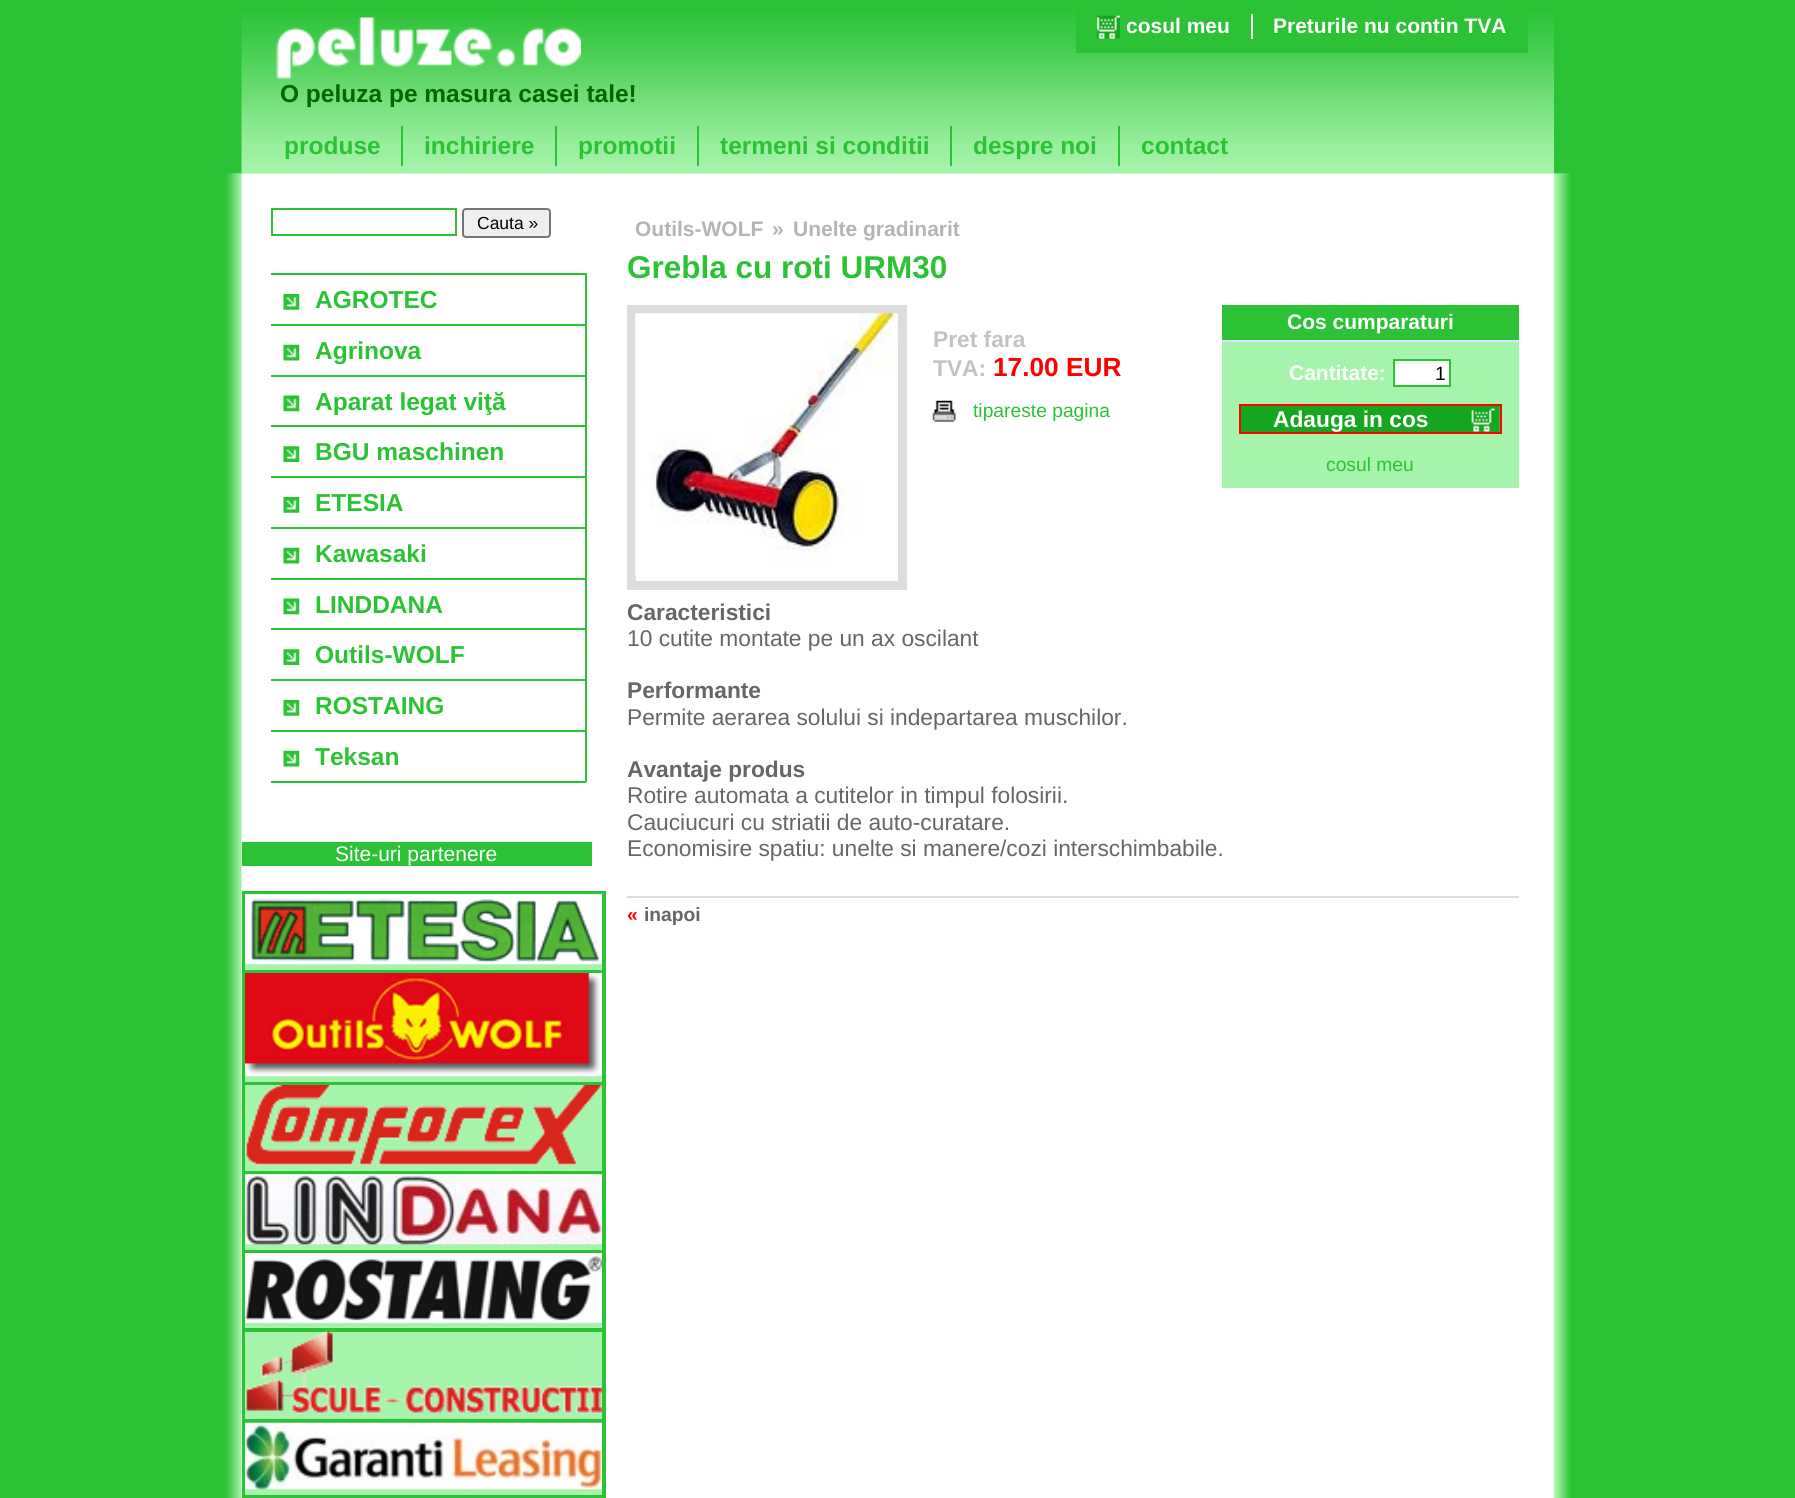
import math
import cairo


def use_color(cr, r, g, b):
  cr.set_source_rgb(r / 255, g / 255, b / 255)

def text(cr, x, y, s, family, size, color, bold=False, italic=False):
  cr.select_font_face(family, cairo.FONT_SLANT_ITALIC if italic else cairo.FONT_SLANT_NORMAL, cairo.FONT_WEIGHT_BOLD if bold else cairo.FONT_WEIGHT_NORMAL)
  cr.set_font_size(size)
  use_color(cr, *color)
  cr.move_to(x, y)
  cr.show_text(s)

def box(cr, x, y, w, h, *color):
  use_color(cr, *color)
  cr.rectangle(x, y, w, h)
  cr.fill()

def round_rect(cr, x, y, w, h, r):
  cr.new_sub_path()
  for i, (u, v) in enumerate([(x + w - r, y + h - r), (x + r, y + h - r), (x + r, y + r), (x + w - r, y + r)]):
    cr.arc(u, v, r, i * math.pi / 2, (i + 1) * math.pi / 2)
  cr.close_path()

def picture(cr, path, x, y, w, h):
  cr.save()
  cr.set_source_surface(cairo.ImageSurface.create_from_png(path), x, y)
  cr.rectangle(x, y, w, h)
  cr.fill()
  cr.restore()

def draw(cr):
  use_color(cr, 43, 194, 53)
  cr.paint()
  picture(cr, "img_01.png", 241, 11, 1313, 163)
  box(cr, 1076, 11, 452, 42, 43, 194, 53)
  picture(cr, "img_02.png", 1097, 15, 23, 24)
  box(cr, 1251, 14, 2, 25, 255, 255, 255)
  picture(cr, "img_03.png", 276, 17, 305, 62)
  box(cr, 401, 126, 2, 40, 43, 194, 53)
  box(cr, 555, 126, 2, 40, 43, 194, 53)
  box(cr, 697, 126, 2, 40, 43, 194, 53)
  box(cr, 950, 126, 2, 40, 43, 194, 53)
  box(cr, 1118, 126, 2, 40, 43, 194, 53)
  picture(cr, "img_04.png", 226, 173, 1345, 1325)
  cr.rectangle(272, 209, 184, 26)
  cr.stroke()
  use_color(cr, 239, 239, 239)
  round_rect(cr, 463, 209, 87, 28, 3)
  cr.fill_preserve()
  use_color(cr, 118, 118, 118)
  cr.stroke()
  box(cr, 271, 273, 315, 2, 43, 194, 53)
  box(cr, 585, 273, 2, 103, 43, 194, 53)
  box(cr, 271, 324, 315, 2, 43, 194, 53)
  picture(cr, "img_05.png", 283, 294, 17, 16)
  box(cr, 271, 375, 315, 2, 43, 194, 53)
  picture(cr, "img_06.png", 283, 344, 17, 17)
  box(cr, 585, 376, 2, 203, 43, 194, 53)
  box(cr, 271, 425, 315, 2, 43, 194, 53)
  picture(cr, "img_07.png", 283, 395, 17, 17)
  box(cr, 271, 476, 315, 2, 43, 194, 53)
  picture(cr, "img_08.png", 283, 446, 17, 16)
  box(cr, 271, 527, 315, 2, 43, 194, 53)
  picture(cr, "img_05.png", 283, 497, 17, 16)
  box(cr, 271, 578, 315, 2, 43, 194, 53)
  picture(cr, "img_06.png", 283, 547, 17, 17)
  box(cr, 585, 579, 2, 203, 43, 194, 53)
  box(cr, 271, 628, 315, 2, 43, 194, 53)
  picture(cr, "img_07.png", 283, 598, 17, 17)
  box(cr, 271, 679, 315, 2, 43, 194, 53)
  picture(cr, "img_08.png", 283, 649, 17, 16)
  box(cr, 271, 730, 315, 2, 43, 194, 53)
  picture(cr, "img_05.png", 283, 700, 17, 16)
  box(cr, 271, 781, 315, 2, 43, 194, 53)
  picture(cr, "img_06.png", 283, 750, 17, 17)
  box(cr, 242, 842, 350, 24, 43, 194, 53)
  box(cr, 242, 891, 364, 607, 43, 194, 53)
  box(cr, 245, 894, 357, 76, 166, 244, 171)
  picture(cr, "img_09.png", 245, 894, 357, 71)
  box(cr, 245, 1076, 357, 6, 166, 244, 171)
  picture(cr, "img_10.png", 245, 973, 357, 104)
  box(cr, 245, 1085, 357, 86, 166, 244, 171)
  picture(cr, "img_11.png", 245, 1085, 357, 81)
  box(cr, 245, 1174, 357, 76, 166, 244, 171)
  picture(cr, "img_12.png", 245, 1174, 357, 71)
  box(cr, 245, 1323, 357, 5, 166, 244, 171)
  picture(cr, "img_13.png", 245, 1253, 357, 70)
  box(cr, 245, 1332, 357, 87, 166, 244, 171)
  picture(cr, "img_14.png", 245, 1331, 357, 83)
  box(cr, 245, 1489, 357, 6, 166, 244, 171)
  picture(cr, "img_15.png", 245, 1422, 357, 68)
  cr.rectangle(631.5, 309.5, 271, 276)
  use_color(cr, 221, 221, 221)
  cr.set_line_width(9)
  cr.stroke()
  picture(cr, "img_16.png", 635, 313, 263, 263)
  box(cr, 1222, 342, 297, 146, 166, 244, 171)
  box(cr, 1222, 305, 297, 35, 43, 194, 53)
  box(cr, 1222, 340, 297, 2, 215, 227, 255)
  use_color(cr, 255, 255, 255)
  cr.rectangle(1394, 360, 56, 26)
  cr.fill_preserve()
  use_color(cr, 43, 194, 53)
  cr.set_line_width(2)
  cr.stroke()
  picture(cr, "img_17.png", 1241, 406, 259, 26)
  cr.rectangle(1240, 405, 261, 28)
  use_color(cr, 255, 0, 0)
  cr.stroke()
  picture(cr, "img_18.png", 932, 400, 24, 22)
  box(cr, 627, 896, 892, 2, 221, 221, 221)
  text(cr, 1126, 33, "cosul meu", "Liberation Sans", 21, (255, 255, 255), bold=True)
  text(cr, 1273, 33, "Preturile nu contin TVA", "Liberation Sans", 21, (255, 255, 255), bold=True)
  text(cr, 280, 102, "O peluza pe masura casei tale!", "Liberation Sans", 24.5, (0, 102, 0), bold=True)
  text(cr, 284, 154, "produse", "Liberation Sans", 24.5, (43, 194, 53), bold=True)
  text(cr, 424, 154, "inchiriere", "Liberation Sans", 24.5, (43, 194, 53), bold=True)
  text(cr, 578, 154, "promotii", "Liberation Sans", 24.5, (43, 194, 53), bold=True)
  text(cr, 720, 154, "termeni si conditii", "Liberation Sans", 24.5, (43, 194, 53), bold=True)
  text(cr, 973, 154, "despre noi", "Liberation Sans", 24.5, (43, 194, 53), bold=True)
  text(cr, 1141, 154, "contact", "Liberation Sans", 24.5, (43, 194, 53), bold=True)
  text(cr, 477, 229, "Cauta »", "Liberation Sans", 17.5, (0, 0, 0))
  text(cr, 315, 308, "AGROTEC", "Liberation Sans", 24.5, (43, 194, 53), bold=True)
  text(cr, 315, 359, "Agrinova", "Liberation Sans", 24.5, (43, 194, 53), bold=True)
  text(cr, 315, 410, "Aparat legat viţă", "Liberation Sans", 24.5, (43, 194, 53), bold=True)
  text(cr, 315, 460, "BGU maschinen", "Liberation Sans", 24.5, (43, 194, 53), bold=True)
  text(cr, 315, 511, "ETESIA", "Liberation Sans", 24.5, (43, 194, 53), bold=True)
  text(cr, 315, 562, "Kawasaki", "Liberation Sans", 24.5, (43, 194, 53), bold=True)
  text(cr, 315, 613, "LINDDANA", "Liberation Sans", 24.5, (43, 194, 53), bold=True)
  text(cr, 315, 663, "Outils-WOLF", "Liberation Sans", 24.5, (43, 194, 53), bold=True)
  text(cr, 315, 714, "ROSTAING", "Liberation Sans", 24.5, (43, 194, 53), bold=True)
  text(cr, 315, 765, "Teksan", "Liberation Sans", 24.5, (43, 194, 53), bold=True)
  text(cr, 335, 861, "Site-uri partenere", "Liberation Sans", 21, (255, 255, 255))
  text(cr, 635, 236, "Outils-WOLF", "Liberation Sans", 21, (180, 180, 180), bold=True)
  text(cr, 772, 236, "»", "Liberation Sans", 21, (180, 180, 180), bold=True)
  text(cr, 793, 236, "Unelte gradinarit", "Liberation Sans", 21, (180, 180, 180), bold=True)
  text(cr, 627, 278, "Grebla cu roti URM30", "Liberation Sans", 31.5, (43, 194, 53), bold=True)
  text(cr, 933, 347, "Pret fara", "Liberation Sans", 22.75, (194, 194, 194), bold=True)
  text(cr, 933, 376, "TVA:", "Liberation Sans", 22.75, (194, 194, 194), bold=True)
  text(cr, 993, 376, "17.00 EUR", "Liberation Sans", 26.25, (255, 0, 0), bold=True)
  text(cr, 1287, 329, "Cos cumparaturi", "Liberation Sans", 21, (255, 255, 255), bold=True)
  text(cr, 1289, 380, "Cantitate:", "Liberation Sans", 21, (255, 255, 255), bold=True)
  text(cr, 1435, 380, "1", "Liberation Sans", 19.25, (0, 0, 0))
  text(cr, 1273, 427, "Adauga in cos", "Liberation Sans", 22.75, (255, 255, 255), bold=True)
  text(cr, 1326, 471, "cosul meu", "Liberation Sans", 19.25, (43, 194, 53))
  text(cr, 973, 417, "tipareste pagina", "Liberation Sans", 19.25, (43, 194, 53))
  text(cr, 627, 620, "Caracteristici", "Liberation Sans", 22.75, (102, 102, 102), bold=True)
  text(cr, 627, 646, "10 cutite montate pe un ax oscilant", "Liberation Sans", 22.75, (102, 102, 102))
  text(cr, 627, 698, "Performante", "Liberation Sans", 22.75, (102, 102, 102), bold=True)
  text(cr, 627, 725, "Permite aerarea solului si indepartarea muschilor.", "Liberation Sans", 22.75, (102, 102, 102))
  text(cr, 627, 777, "Avantaje produs", "Liberation Sans", 22.75, (102, 102, 102), bold=True)
  text(cr, 627, 803, "Rotire automata a cutitelor in timpul folosirii.", "Liberation Sans", 22.75, (102, 102, 102))
  text(cr, 627, 830, "Cauciucuri cu striatii de auto-curatare.", "Liberation Sans", 22.75, (102, 102, 102))
  text(cr, 627, 856, "Economisire spatiu: unelte si manere/cozi interschimbabile.", "Liberation Sans", 22.75, (102, 102, 102))
  text(cr, 627, 921, "«", "Liberation Sans", 19.25, (255, 0, 0), bold=True)
  text(cr, 644, 921, "inapoi", "Liberation Sans", 19.25, (102, 102, 102), bold=True)


surface = cairo.ImageSurface(cairo.FORMAT_RGB24, 1795, 1498)
cr = cairo.Context(surface)
options = cairo.FontOptions()
options.set_hint_metrics(cairo.HINT_METRICS_OFF)
options.set_hint_style(cairo.HINT_STYLE_NONE)
cr.set_font_options(options)
cr.set_miter_limit(4)
draw(cr)
surface.write_to_png("out.png")
